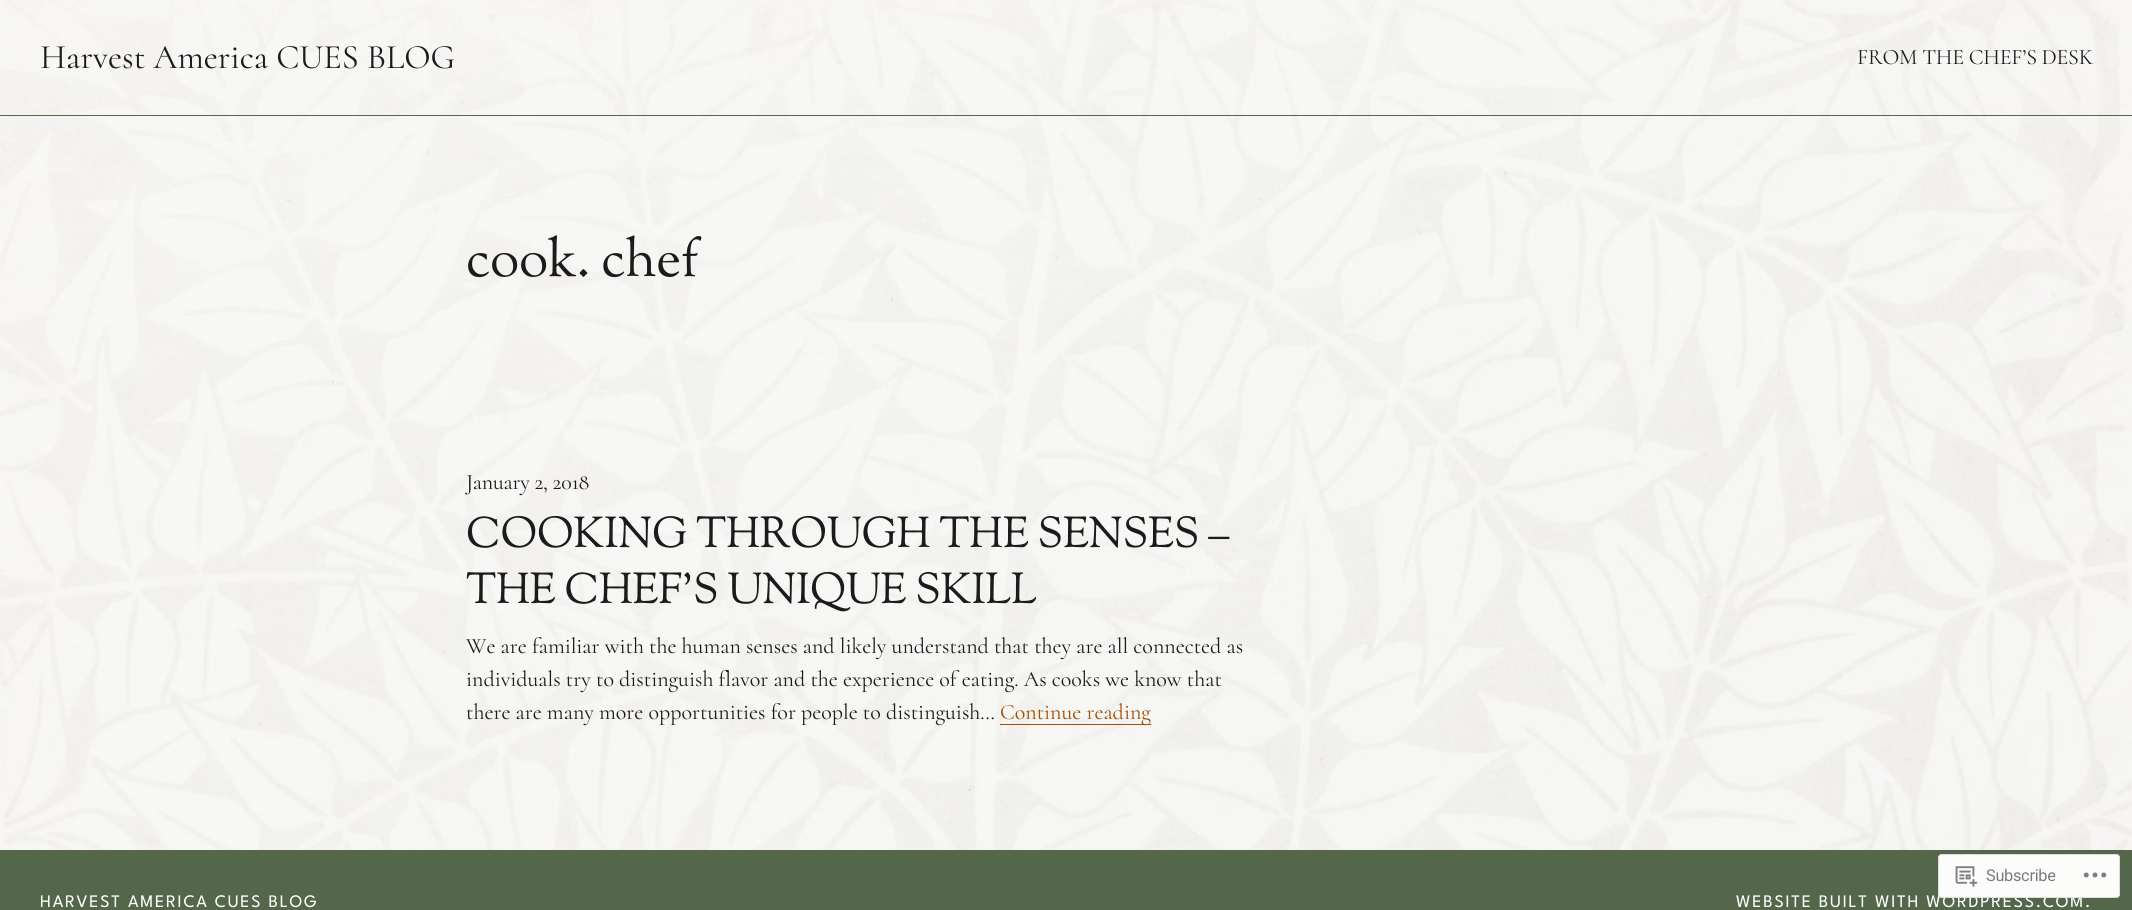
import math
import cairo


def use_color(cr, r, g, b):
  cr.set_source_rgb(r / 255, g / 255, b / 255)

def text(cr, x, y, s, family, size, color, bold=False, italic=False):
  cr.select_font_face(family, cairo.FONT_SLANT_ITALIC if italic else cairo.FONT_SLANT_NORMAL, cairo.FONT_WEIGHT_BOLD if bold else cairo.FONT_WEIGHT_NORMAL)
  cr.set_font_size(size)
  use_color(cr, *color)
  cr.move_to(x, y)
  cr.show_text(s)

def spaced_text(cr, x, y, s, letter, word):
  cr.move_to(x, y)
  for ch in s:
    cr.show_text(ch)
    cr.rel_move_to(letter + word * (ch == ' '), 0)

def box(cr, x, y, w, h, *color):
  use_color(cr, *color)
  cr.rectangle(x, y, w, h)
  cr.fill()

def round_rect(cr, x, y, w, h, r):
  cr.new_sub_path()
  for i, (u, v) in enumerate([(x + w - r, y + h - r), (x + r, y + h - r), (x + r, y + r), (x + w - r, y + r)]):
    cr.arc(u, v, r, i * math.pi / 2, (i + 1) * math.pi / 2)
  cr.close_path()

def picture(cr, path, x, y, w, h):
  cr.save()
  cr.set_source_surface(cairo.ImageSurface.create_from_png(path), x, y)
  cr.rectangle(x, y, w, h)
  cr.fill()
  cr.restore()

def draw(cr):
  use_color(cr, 255, 255, 255)
  cr.paint()
  picture(cr, "img_01.png", 0, 0, 2132, 850)
  box(cr, 0, 115, 2132, 1, 84, 103, 74)
  box(cr, 1000, 724, 151, 1, 163, 78, 0)
  box(cr, 0, 850, 2132, 60, 84, 103, 74)
  text(cr, 40, 68, "Harvest America CUES BLOG", "Cormorant", 34.4, (27, 27, 27))
  cr.set_font_size(22)
  spaced_text(cr, 1857, 64, "FROM THE CHEF’S DESK", -0.25, 0)
  cr.select_font_face("Sorts Mill Goudy")
  cr.set_font_size(53.5)
  spaced_text(cr, 466, 276, "cook. chef", -0.25, 0)
  cr.select_font_face("Cormorant")
  cr.set_font_size(22)
  spaced_text(cr, 466, 489, "January 2, 2018", -0.25, 0)
  cr.select_font_face("Sorts Mill Goudy")
  cr.set_font_size(43)
  spaced_text(cr, 466, 547, "COOKING THROUGH THE SENSES –", -0.25, 0)
  spaced_text(cr, 466, 603, "THE CHEF’S UNIQUE SKILL", -0.25, 0)
  text(cr, 466, 653, "We are familiar with the human senses and likely understand that they are all connected as", "Cormorant", 22, (27, 27, 27))
  text(cr, 466, 686, "individuals try to distinguish flavor and the experience of eating. As cooks we know that", "Cormorant", 22, (27, 27, 27))
  text(cr, 466, 719, "there are many more opportunities for people to distinguish…", "Cormorant", 22, (27, 27, 27))
  text(cr, 1000, 719, "Continue reading", "Cormorant", 22, (163, 78, 0))
  cr.select_font_face("League Spartan")
  cr.set_font_size(17.6)
  use_color(cr, 255, 255, 255)
  spaced_text(cr, 40, 907, "HARVEST AMERICA CUES BLOG", 1.75, 0)
  spaced_text(cr, 1736, 907, "WEBSITE BUILT WITH WORDPRESS.COM.", 1.75, 0)
  cr.set_source_rgba(1, 1, 1, 0.98)
  round_rect(cr, 1938, 854, 182, 44, 4)
  cr.fill()
  round_rect(cr, 1938.5, 854.5, 181, 43, 3.5)
  cr.set_source_rgba(0.863, 0.863, 0.871, 0.98)
  cr.set_line_width(1)
  cr.stroke()
  picture(cr, "img_02.png", 1955, 866, 23, 21)
  cr.select_font_face("Roboto")
  cr.set_font_size(16.25)
  use_color(cr, 119, 124, 129)
  spaced_text(cr, 1986, 881, "Subscribe", -0.25, 0)
  picture(cr, "img_03.png", 2083, 872, 24, 6)


surface = cairo.ImageSurface(cairo.FORMAT_RGB24, 2132, 910)
cr = cairo.Context(surface)
options = cairo.FontOptions()
options.set_hint_metrics(cairo.HINT_METRICS_OFF)
options.set_hint_style(cairo.HINT_STYLE_NONE)
cr.set_font_options(options)
cr.set_miter_limit(4)
draw(cr)
surface.write_to_png("out.png")
